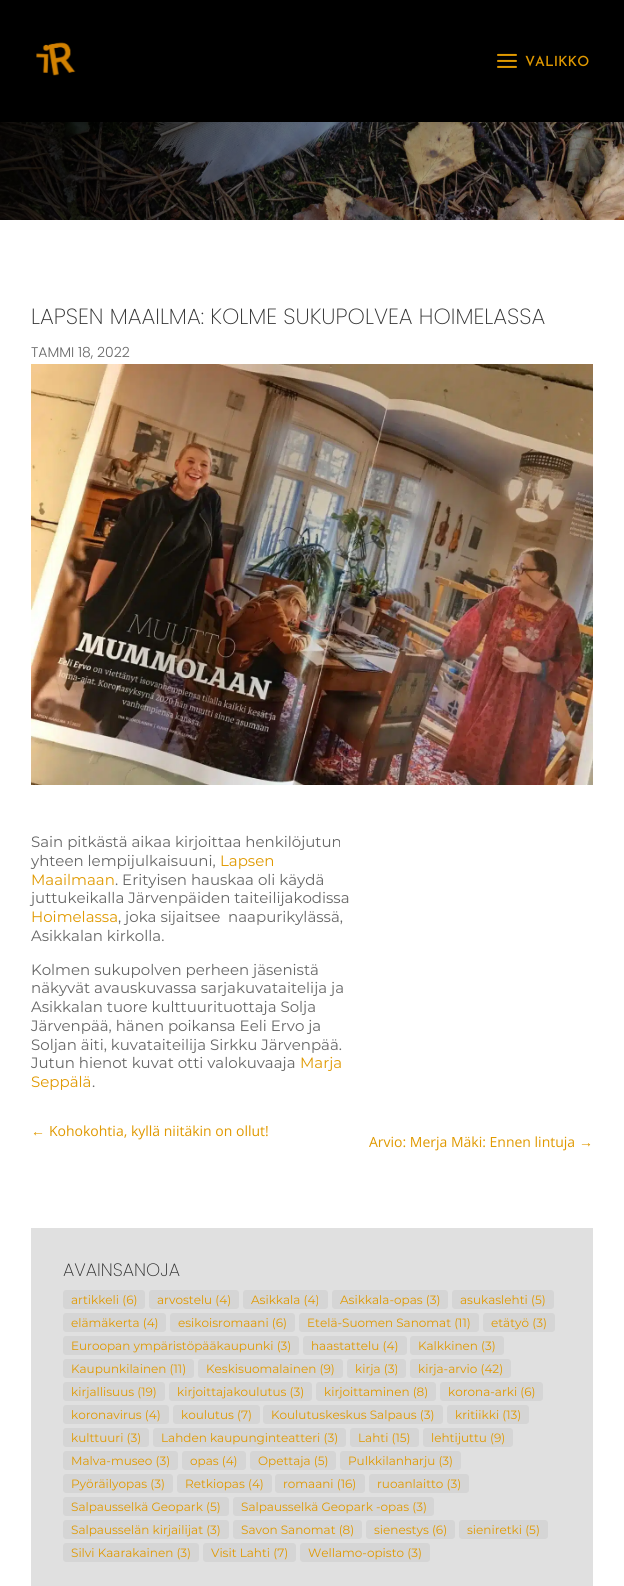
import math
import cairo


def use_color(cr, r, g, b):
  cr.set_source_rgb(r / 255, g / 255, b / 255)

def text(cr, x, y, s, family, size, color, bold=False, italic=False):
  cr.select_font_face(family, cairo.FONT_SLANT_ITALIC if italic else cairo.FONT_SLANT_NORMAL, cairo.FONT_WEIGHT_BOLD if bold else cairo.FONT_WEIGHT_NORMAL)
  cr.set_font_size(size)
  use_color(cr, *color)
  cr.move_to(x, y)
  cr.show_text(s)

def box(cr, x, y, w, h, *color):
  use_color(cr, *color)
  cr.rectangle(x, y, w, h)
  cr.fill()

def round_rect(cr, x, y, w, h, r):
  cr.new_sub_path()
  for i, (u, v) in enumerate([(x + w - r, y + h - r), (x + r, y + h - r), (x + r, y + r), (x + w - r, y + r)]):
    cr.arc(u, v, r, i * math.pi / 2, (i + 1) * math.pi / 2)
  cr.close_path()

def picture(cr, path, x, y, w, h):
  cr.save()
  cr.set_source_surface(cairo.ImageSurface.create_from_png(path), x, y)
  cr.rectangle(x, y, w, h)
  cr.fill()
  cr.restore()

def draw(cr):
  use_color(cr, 255, 255, 255)
  cr.paint()
  box(cr, 0, 0, 624, 122, 0, 0, 0)
  picture(cr, "img_01.png", 36, 42, 40, 34)
  picture(cr, "img_02.png", 497, 53, 20, 15)
  picture(cr, "img_03.png", 0, 122, 624, 98)
  picture(cr, "img_04.png", 31, 364, 562, 421)
  box(cr, 31, 1228, 562, 358, 224, 224, 224)
  use_color(cr, 213, 213, 213)
  round_rect(cr, 63, 1290, 82, 19, 3)
  cr.fill()
  round_rect(cr, 149, 1290, 90, 19, 3)
  cr.fill()
  round_rect(cr, 243, 1290, 85, 19, 3)
  cr.fill()
  round_rect(cr, 332, 1290, 116, 19, 3)
  cr.fill()
  round_rect(cr, 452, 1290, 102, 19, 3)
  cr.fill()
  round_rect(cr, 63, 1313, 103, 19, 3)
  cr.fill()
  round_rect(cr, 170, 1313, 125, 19, 3)
  cr.fill()
  round_rect(cr, 299, 1313, 180, 19, 3)
  cr.fill()
  round_rect(cr, 483, 1313, 72, 19, 3)
  cr.fill()
  round_rect(cr, 63, 1336, 236, 19, 3)
  cr.fill()
  round_rect(cr, 303, 1336, 104, 19, 3)
  cr.fill()
  round_rect(cr, 410, 1336, 94, 19, 3)
  cr.fill()
  round_rect(cr, 63, 1359, 131, 19, 3)
  cr.fill()
  round_rect(cr, 198, 1359, 145, 19, 3)
  cr.fill()
  round_rect(cr, 347, 1359, 59, 19, 3)
  cr.fill()
  round_rect(cr, 410, 1359, 101, 19, 3)
  cr.fill()
  round_rect(cr, 63, 1382, 102, 19, 3)
  cr.fill()
  round_rect(cr, 169, 1382, 143, 19, 3)
  cr.fill()
  round_rect(cr, 316, 1382, 120, 19, 3)
  cr.fill()
  round_rect(cr, 440, 1382, 103, 19, 3)
  cr.fill()
  round_rect(cr, 63, 1405, 106, 19, 3)
  cr.fill()
  round_rect(cr, 173, 1405, 87, 19, 3)
  cr.fill()
  round_rect(cr, 263, 1405, 180, 19, 3)
  cr.fill()
  round_rect(cr, 447, 1405, 82, 19, 3)
  cr.fill()
  round_rect(cr, 63, 1428, 86, 19, 3)
  cr.fill()
  round_rect(cr, 153, 1428, 193, 19, 3)
  cr.fill()
  round_rect(cr, 350, 1428, 69, 19, 3)
  cr.fill()
  round_rect(cr, 423, 1428, 90, 19, 3)
  cr.fill()
  round_rect(cr, 63, 1451, 115, 19, 3)
  cr.fill()
  round_rect(cr, 182, 1451, 64, 19, 3)
  cr.fill()
  round_rect(cr, 250, 1451, 86, 19, 3)
  cr.fill()
  round_rect(cr, 340, 1451, 121, 19, 3)
  cr.fill()
  round_rect(cr, 63, 1474, 110, 19, 3)
  cr.fill()
  round_rect(cr, 177, 1474, 95, 19, 3)
  cr.fill()
  round_rect(cr, 275, 1474, 90, 19, 3)
  cr.fill()
  round_rect(cr, 369, 1474, 100, 19, 3)
  cr.fill()
  round_rect(cr, 63, 1497, 166, 19, 3)
  cr.fill()
  round_rect(cr, 233, 1497, 201, 19, 3)
  cr.fill()
  round_rect(cr, 63, 1520, 166, 19, 3)
  cr.fill()
  round_rect(cr, 233, 1520, 129, 19, 3)
  cr.fill()
  round_rect(cr, 366, 1520, 89, 19, 3)
  cr.fill()
  round_rect(cr, 459, 1520, 89, 19, 3)
  cr.fill()
  round_rect(cr, 63, 1543, 136, 19, 3)
  cr.fill()
  round_rect(cr, 203, 1543, 93, 19, 3)
  cr.fill()
  round_rect(cr, 300, 1543, 130, 19, 3)
  cr.fill()
  text(cr, 525, 66, "VALIKKO", "Josefin Sans Medium", 14, (224, 153, 0))
  text(cr, 31, 324, "LAPSEN MAAILMA: KOLME SUKUPOLVEA HOIMELASSA", "Poppins ExtraLight", 22, (51, 51, 51))
  text(cr, 31, 357, "TAMMI 18, 2022", "Poppins Light", 14, (102, 102, 102))
  text(cr, 31, 847, "Sain pitkästä aikaa kirjoittaa henkilöjutun", "Montserrat", 15, (102, 102, 102))
  text(cr, 31, 866, "yhteen lempijulkaisuuni,", "Montserrat", 15, (102, 102, 102))
  text(cr, 220, 866, "Lapsen", "Montserrat", 15, (224, 153, 0))
  text(cr, 31, 885, "Maailmaan", "Montserrat", 15, (224, 153, 0))
  text(cr, 115, 885, ". Erityisen hauskaa oli käydä", "Montserrat", 15, (102, 102, 102))
  text(cr, 31, 903, "juttukeikalla Järvenpäiden taiteilijakodissa", "Montserrat", 15, (102, 102, 102))
  text(cr, 31, 922, "Hoimelassa", "Montserrat", 15, (224, 153, 0))
  text(cr, 118, 922, ", joka sijaitsee  naapurikylässä,", "Montserrat", 15, (102, 102, 102))
  text(cr, 31, 941, "Asikkalan kirkolla.", "Montserrat", 15, (102, 102, 102))
  text(cr, 31, 975, "Kolmen sukupolven perheen jäsenistä", "Montserrat", 15, (102, 102, 102))
  text(cr, 31, 993, "näkyvät avauskuvassa sarjakuvataitelija ja", "Montserrat", 15, (102, 102, 102))
  text(cr, 31, 1012, "Asikkalan tuore kulttuurituottaja Solja", "Montserrat", 15, (102, 102, 102))
  text(cr, 31, 1031, "Järvenpää, hänen poikansa Eeli Ervo ja", "Montserrat", 15, (102, 102, 102))
  text(cr, 31, 1050, "Soljan äiti, kuvataiteilija Sirkku Järvenpää.", "Montserrat", 15, (102, 102, 102))
  text(cr, 31, 1068, "Jutun hienot kuvat otti valokuvaaja", "Montserrat", 15, (102, 102, 102))
  text(cr, 300, 1068, "Marja", "Montserrat", 15, (224, 153, 0))
  text(cr, 31, 1087, "Seppälä", "Montserrat", 15, (224, 153, 0))
  text(cr, 92, 1087, ".", "Montserrat", 15, (102, 102, 102))
  text(cr, 31, 1136, "←", "Liberation Sans", 14, (224, 153, 0))
  text(cr, 49, 1136, "Kohokohtia, kyllä niitäkin on ollut!", "Open Sans", 14, (224, 153, 0))
  text(cr, 369, 1147, "Arvio: Merja Mäki: Ennen lintuja", "Open Sans", 14, (224, 153, 0))
  text(cr, 579, 1147, "→", "Liberation Sans", 14, (224, 153, 0))
  text(cr, 63, 1276, "AVAINSANOJA", "Poppins ExtraLight", 18, (51, 51, 51))
  text(cr, 71, 1304, "artikkeli (6)", "Montserrat", 12, (224, 153, 0))
  text(cr, 157, 1304, "arvostelu (4)", "Montserrat", 12, (224, 153, 0))
  text(cr, 251, 1304, "Asikkala (4)", "Montserrat", 12, (224, 153, 0))
  text(cr, 340, 1304, "Asikkala-opas (3)", "Montserrat", 12, (224, 153, 0))
  text(cr, 460, 1304, "asukaslehti (5)", "Montserrat", 12, (224, 153, 0))
  text(cr, 71, 1327, "elämäkerta (4)", "Montserrat", 12, (224, 153, 0))
  text(cr, 178, 1327, "esikoisromaani (6)", "Montserrat", 12, (224, 153, 0))
  text(cr, 307, 1327, "Etelä-Suomen Sanomat (11)", "Montserrat", 12, (224, 153, 0))
  text(cr, 491, 1327, "etätyö (3)", "Montserrat", 12, (224, 153, 0))
  text(cr, 71, 1350, "Euroopan ympäristöpääkaupunki (3)", "Montserrat", 12, (224, 153, 0))
  text(cr, 311, 1350, "haastattelu (4)", "Montserrat", 12, (224, 153, 0))
  text(cr, 418, 1350, "Kalkkinen (3)", "Montserrat", 12, (224, 153, 0))
  text(cr, 71, 1373, "Kaupunkilainen (11)", "Montserrat", 12, (224, 153, 0))
  text(cr, 206, 1373, "Keskisuomalainen (9)", "Montserrat", 12, (224, 153, 0))
  text(cr, 355, 1373, "kirja (3)", "Montserrat", 12, (224, 153, 0))
  text(cr, 418, 1373, "kirja-arvio (42)", "Montserrat", 12, (224, 153, 0))
  text(cr, 71, 1396, "kirjallisuus (19)", "Montserrat", 12, (224, 153, 0))
  text(cr, 177, 1396, "kirjoittajakoulutus (3)", "Montserrat", 12, (224, 153, 0))
  text(cr, 324, 1396, "kirjoittaminen (8)", "Montserrat", 12, (224, 153, 0))
  text(cr, 448, 1396, "korona-arki (6)", "Montserrat", 12, (224, 153, 0))
  text(cr, 71, 1419, "koronavirus (4)", "Montserrat", 12, (224, 153, 0))
  text(cr, 181, 1419, "koulutus (7)", "Montserrat", 12, (224, 153, 0))
  text(cr, 271, 1419, "Koulutuskeskus Salpaus (3)", "Montserrat", 12, (224, 153, 0))
  text(cr, 455, 1419, "kritiikki (13)", "Montserrat", 12, (224, 153, 0))
  text(cr, 71, 1442, "kulttuuri (3)", "Montserrat", 12, (224, 153, 0))
  text(cr, 161, 1442, "Lahden kaupunginteatteri (3)", "Montserrat", 12, (224, 153, 0))
  text(cr, 358, 1442, "Lahti (15)", "Montserrat", 12, (224, 153, 0))
  text(cr, 431, 1442, "lehtijuttu (9)", "Montserrat", 12, (224, 153, 0))
  text(cr, 71, 1465, "Malva-museo (3)", "Montserrat", 12, (224, 153, 0))
  text(cr, 190, 1465, "opas (4)", "Montserrat", 12, (224, 153, 0))
  text(cr, 258, 1465, "Opettaja (5)", "Montserrat", 12, (224, 153, 0))
  text(cr, 348, 1465, "Pulkkilanharju (3)", "Montserrat", 12, (224, 153, 0))
  text(cr, 71, 1488, "Pyöräilyopas (3)", "Montserrat", 12, (224, 153, 0))
  text(cr, 185, 1488, "Retkiopas (4)", "Montserrat", 12, (224, 153, 0))
  text(cr, 283, 1488, "romaani (16)", "Montserrat", 12, (224, 153, 0))
  text(cr, 377, 1488, "ruoanlaitto (3)", "Montserrat", 12, (224, 153, 0))
  text(cr, 71, 1511, "Salpausselkä Geopark (5)", "Montserrat", 12, (224, 153, 0))
  text(cr, 241, 1511, "Salpausselkä Geopark -opas (3)", "Montserrat", 12, (224, 153, 0))
  text(cr, 71, 1534, "Salpausselän kirjailijat (3)", "Montserrat", 12, (224, 153, 0))
  text(cr, 241, 1534, "Savon Sanomat (8)", "Montserrat", 12, (224, 153, 0))
  text(cr, 374, 1534, "sienestys (6)", "Montserrat", 12, (224, 153, 0))
  text(cr, 467, 1534, "sieniretki (5)", "Montserrat", 12, (224, 153, 0))
  text(cr, 71, 1557, "Silvi Kaarakainen (3)", "Montserrat", 12, (224, 153, 0))
  text(cr, 211, 1557, "Visit Lahti (7)", "Montserrat", 12, (224, 153, 0))
  text(cr, 308, 1557, "Wellamo-opisto (3)", "Montserrat", 12, (224, 153, 0))


surface = cairo.ImageSurface(cairo.FORMAT_RGB24, 624, 1586)
cr = cairo.Context(surface)
options = cairo.FontOptions()
options.set_hint_metrics(cairo.HINT_METRICS_OFF)
options.set_hint_style(cairo.HINT_STYLE_NONE)
cr.set_font_options(options)
cr.set_miter_limit(4)
draw(cr)
surface.write_to_png("out.png")
